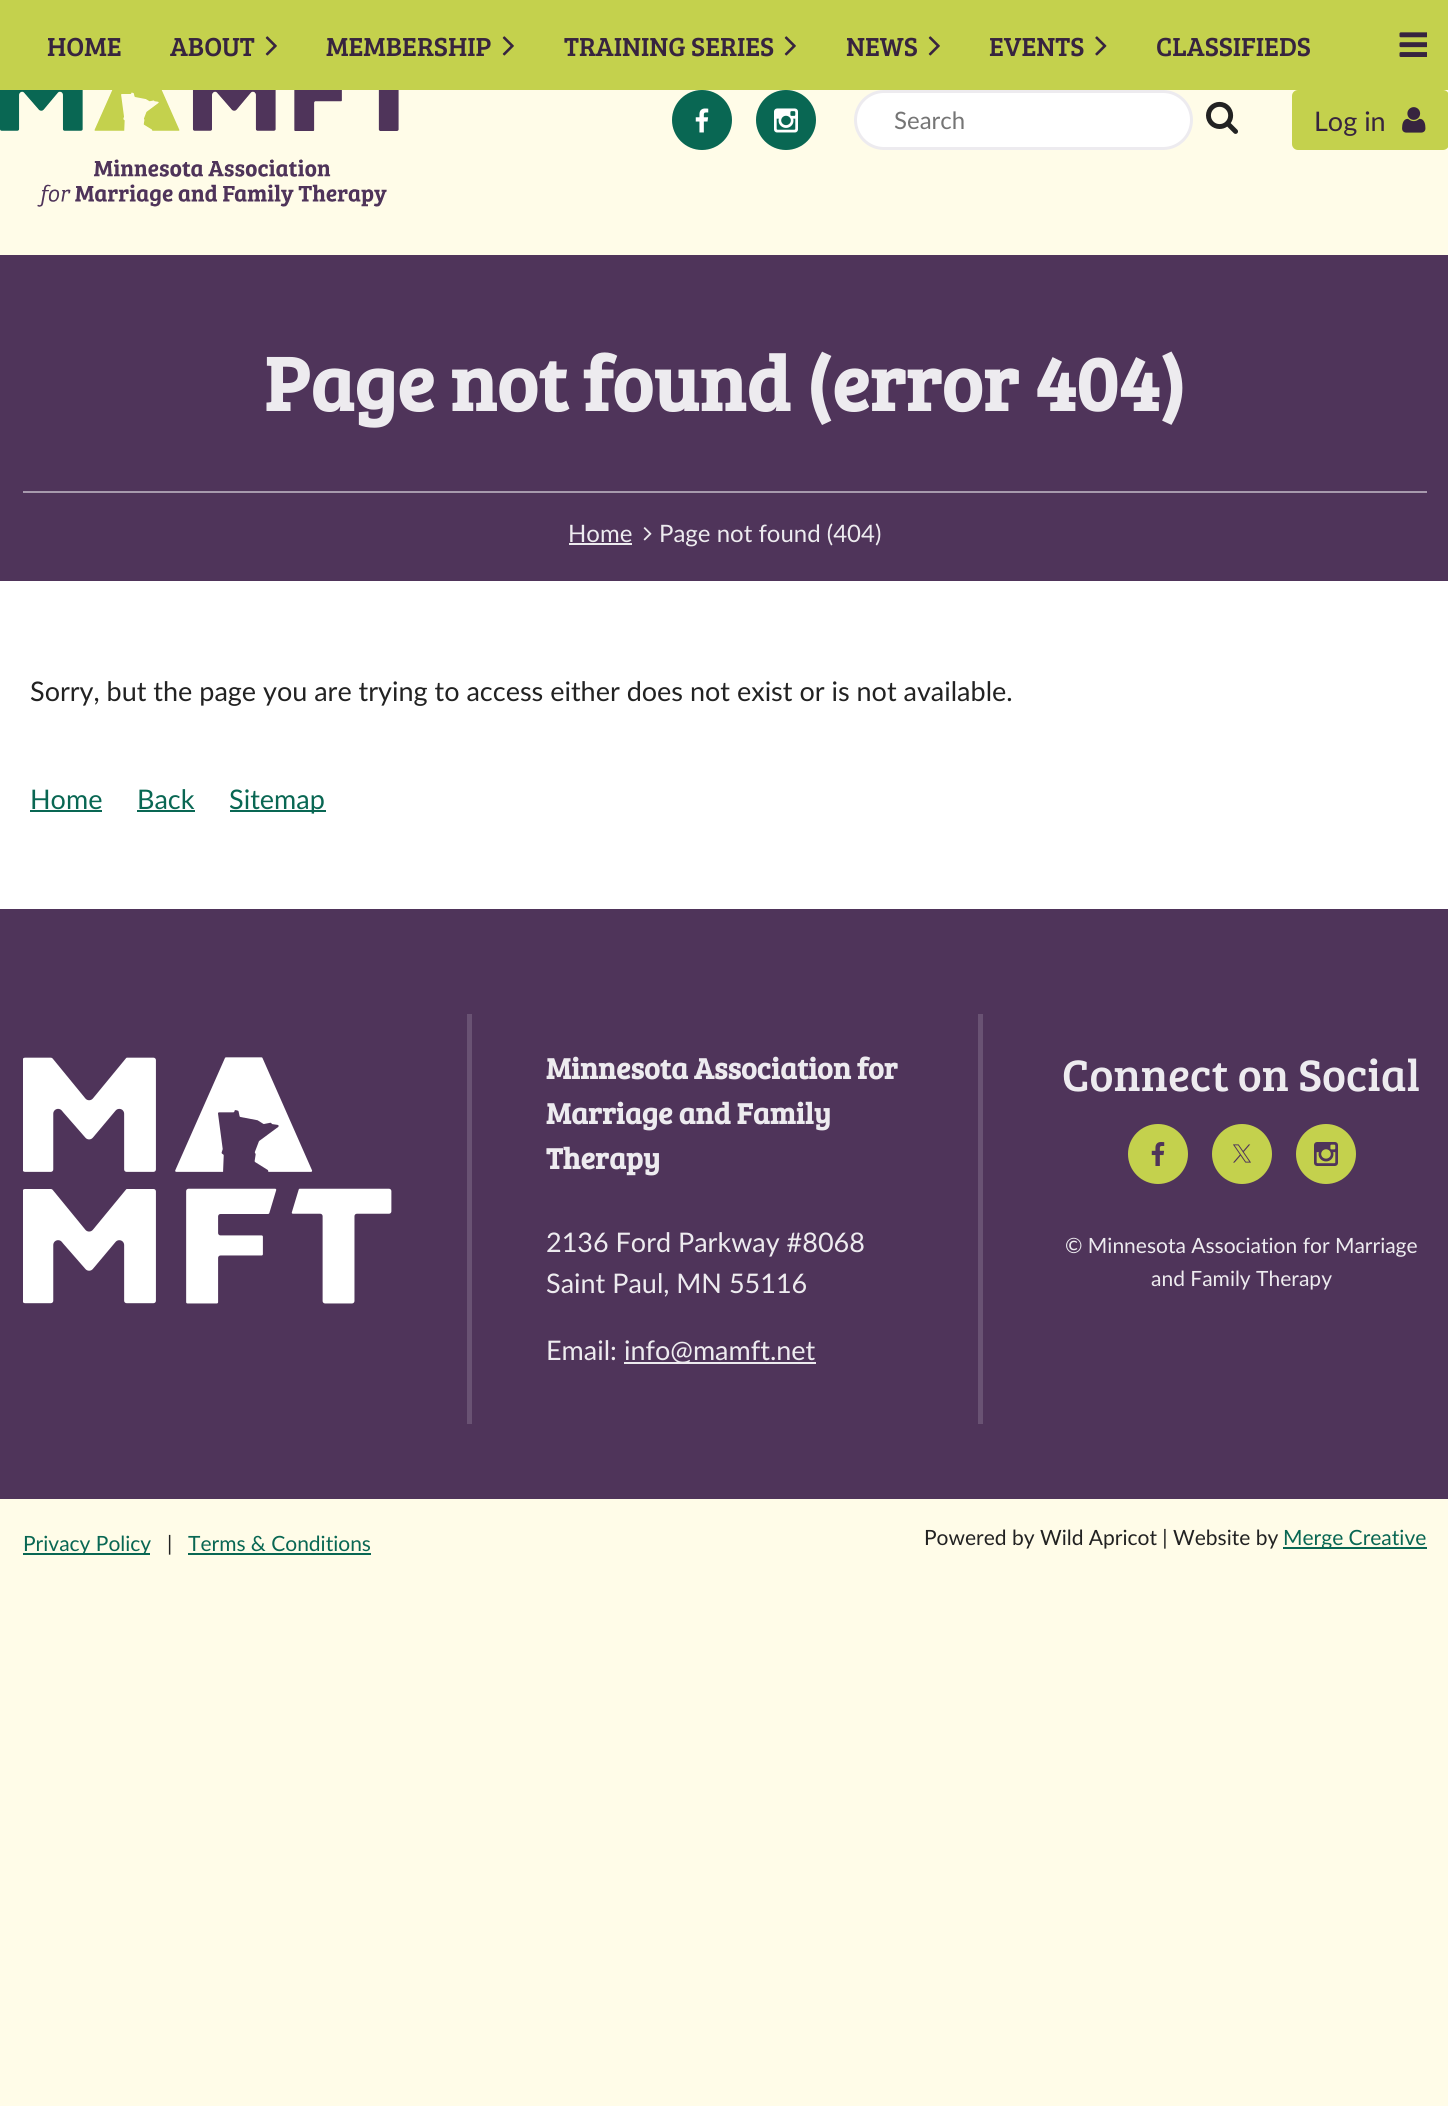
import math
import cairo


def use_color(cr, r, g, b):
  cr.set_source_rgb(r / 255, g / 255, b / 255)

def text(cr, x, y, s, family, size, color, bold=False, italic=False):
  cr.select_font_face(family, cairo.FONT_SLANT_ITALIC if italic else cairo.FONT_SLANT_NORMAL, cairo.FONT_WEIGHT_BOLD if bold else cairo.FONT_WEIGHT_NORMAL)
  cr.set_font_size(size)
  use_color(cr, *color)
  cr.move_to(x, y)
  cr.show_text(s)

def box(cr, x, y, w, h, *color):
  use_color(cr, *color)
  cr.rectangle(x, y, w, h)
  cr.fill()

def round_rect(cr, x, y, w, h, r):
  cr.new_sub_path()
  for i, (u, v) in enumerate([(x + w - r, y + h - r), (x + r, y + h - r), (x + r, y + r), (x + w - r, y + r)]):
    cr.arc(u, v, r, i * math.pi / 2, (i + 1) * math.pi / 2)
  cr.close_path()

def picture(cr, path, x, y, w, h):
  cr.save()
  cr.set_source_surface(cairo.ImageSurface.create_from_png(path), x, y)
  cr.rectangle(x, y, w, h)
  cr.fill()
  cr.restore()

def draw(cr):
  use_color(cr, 255, 252, 232)
  cr.paint()
  box(cr, 0, 0, 1448, 90, 196, 209, 77)
  picture(cr, "img_01.png", 265, 36, 12, 20)
  picture(cr, "img_01.png", 502, 36, 12, 20)
  picture(cr, "img_01.png", 784, 36, 12, 20)
  picture(cr, "img_01.png", 928, 36, 12, 20)
  picture(cr, "img_02.png", 1095, 36, 12, 20)
  picture(cr, "img_03.png", 1399, 32, 28, 25)
  picture(cr, "img_04.png", 0, 90, 399, 117)
  use_color(cr, 9, 103, 83)
  cr.arc(702, 120, 30, 0, 2 * math.pi)
  cr.fill()
  picture(cr, "img_05.png", 695, 108, 14, 25)
  cr.arc(786, 120, 30, 0, 2 * math.pi)
  cr.fill()
  picture(cr, "img_06.png", 774, 108, 24, 25)
  use_color(cr, 255, 255, 255)
  round_rect(cr, 855.5, 91.5, 336, 57, 28.5)
  cr.fill_preserve()
  use_color(cr, 237, 235, 239)
  cr.set_line_width(3)
  cr.stroke()
  picture(cr, "img_07.png", 1206, 101, 32, 33)
  use_color(cr, 196, 209, 77)
  round_rect(cr, 1292, 90, 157, 60, 6)
  cr.fill()
  picture(cr, "img_08.png", 1402, 107, 24, 26)
  box(cr, 0, 255, 1448, 326, 79, 52, 90)
  box(cr, 23, 491, 1404, 2, 167, 154, 173)
  box(cr, 569, 543, 63, 2, 237, 235, 239)
  picture(cr, "img_09.png", 643, 527, 9, 14)
  box(cr, 0, 581, 1448, 328, 255, 255, 255)
  box(cr, 30, 810, 72, 2, 9, 103, 83)
  box(cr, 137, 810, 58, 2, 9, 103, 83)
  box(cr, 230, 810, 96, 2, 9, 103, 83)
  box(cr, 0, 909, 1448, 590, 79, 52, 90)
  picture(cr, "img_10.png", 23, 1057, 369, 247)
  box(cr, 467, 1014, 5, 410, 105, 82, 115)
  box(cr, 624, 1362, 192, 2, 237, 235, 239)
  box(cr, 978, 1014, 5, 410, 105, 82, 115)
  use_color(cr, 196, 209, 77)
  cr.arc(1158, 1154, 30, 0, 2 * math.pi)
  cr.fill()
  picture(cr, "img_11.png", 1151, 1142, 14, 24)
  cr.arc(1242, 1154, 30, 0, 2 * math.pi)
  cr.fill()
  picture(cr, "img_12.png", 1233, 1144, 18, 19)
  cr.arc(1326, 1154, 30, 0, 2 * math.pi)
  cr.fill()
  picture(cr, "img_13.png", 1314, 1142, 24, 24)
  box(cr, 23, 1553, 127, 2, 9, 103, 83)
  box(cr, 188, 1553, 183, 2, 9, 103, 83)
  box(cr, 1283, 1547, 144, 2, 9, 103, 83)
  text(cr, 47, 56, "HOME", "Bree Serif", 27, (55, 36, 63))
  text(cr, 170, 56, "ABOUT", "Bree Serif", 27, (55, 36, 63))
  text(cr, 326, 56, "MEMBERSHIP", "Bree Serif", 27, (55, 36, 63))
  text(cr, 564, 56, "TRAINING SERIES", "Bree Serif", 27, (55, 36, 63))
  text(cr, 846, 56, "NEWS", "Bree Serif", 27, (55, 36, 63))
  text(cr, 989, 56, "EVENTS", "Bree Serif", 27, (55, 36, 63))
  text(cr, 1156, 56, "CLASSIFIEDS", "Bree Serif", 27, (55, 36, 63))
  text(cr, 894, 129, "Search", "Lato", 24, (117, 117, 117))
  text(cr, 1314, 131, "Log in", "Lato", 27, (55, 36, 63))
  text(cr, 264, 411, "Page not found (error 404)", "Bree Serif", 78, (237, 235, 239), bold=True)
  text(cr, 568, 542, "Home", "Lato", 24, (237, 235, 239))
  text(cr, 659, 542, "Page not found (404)", "Lato", 24, (237, 235, 239))
  text(cr, 30, 701, "Sorry, but the page you are trying to access either does not exist or is not available.", "Lato", 27, (34, 34, 34))
  text(cr, 30, 809, "Home", "Lato", 27, (9, 103, 83))
  text(cr, 137, 809, "Back", "Lato", 27, (9, 103, 83))
  text(cr, 229, 809, "Sitemap", "Lato", 27, (9, 103, 83))
  text(cr, 546, 1079, "Minnesota Association for", "Bree Serif", 30, (237, 235, 239), bold=True)
  text(cr, 546, 1124, "Marriage and Family", "Bree Serif", 30, (237, 235, 239), bold=True)
  text(cr, 546, 1169, "Therapy", "Bree Serif", 30, (237, 235, 239), bold=True)
  text(cr, 546, 1252, "2136 Ford Parkway #8068", "Lato", 27, (237, 235, 239))
  text(cr, 546, 1293, "Saint Paul, MN 55116", "Lato", 27, (237, 235, 239))
  text(cr, 546, 1360, "Email:", "Lato", 27, (237, 235, 239))
  text(cr, 624, 1360, "info@mamft.net", "Lato", 27, (237, 235, 239))
  text(cr, 1062, 1091, "Connect on Social", "Bree Serif", 45.5, (237, 235, 239))
  text(cr, 1065, 1253, "© Minnesota Association for Marriage", "Lato", 21, (237, 235, 239))
  text(cr, 1151, 1286, "and Family Therapy", "Lato", 21, (237, 235, 239))
  text(cr, 23, 1551, "Privacy Policy", "Lato", 21, (9, 103, 83))
  text(cr, 167, 1551, "|", "Lato", 21, (34, 34, 34))
  text(cr, 188, 1551, "Terms & Conditions", "Lato", 21, (9, 103, 83))
  text(cr, 924, 1545, "Powered by Wild Apricot | Website by", "Lato", 21, (34, 34, 34))
  text(cr, 1283, 1545, "Merge Creative", "Lato", 21, (9, 103, 83))


surface = cairo.ImageSurface(cairo.FORMAT_RGB24, 1448, 2106)
cr = cairo.Context(surface)
options = cairo.FontOptions()
options.set_hint_metrics(cairo.HINT_METRICS_OFF)
options.set_hint_style(cairo.HINT_STYLE_NONE)
cr.set_font_options(options)
cr.set_miter_limit(4)
draw(cr)
surface.write_to_png("out.png")
